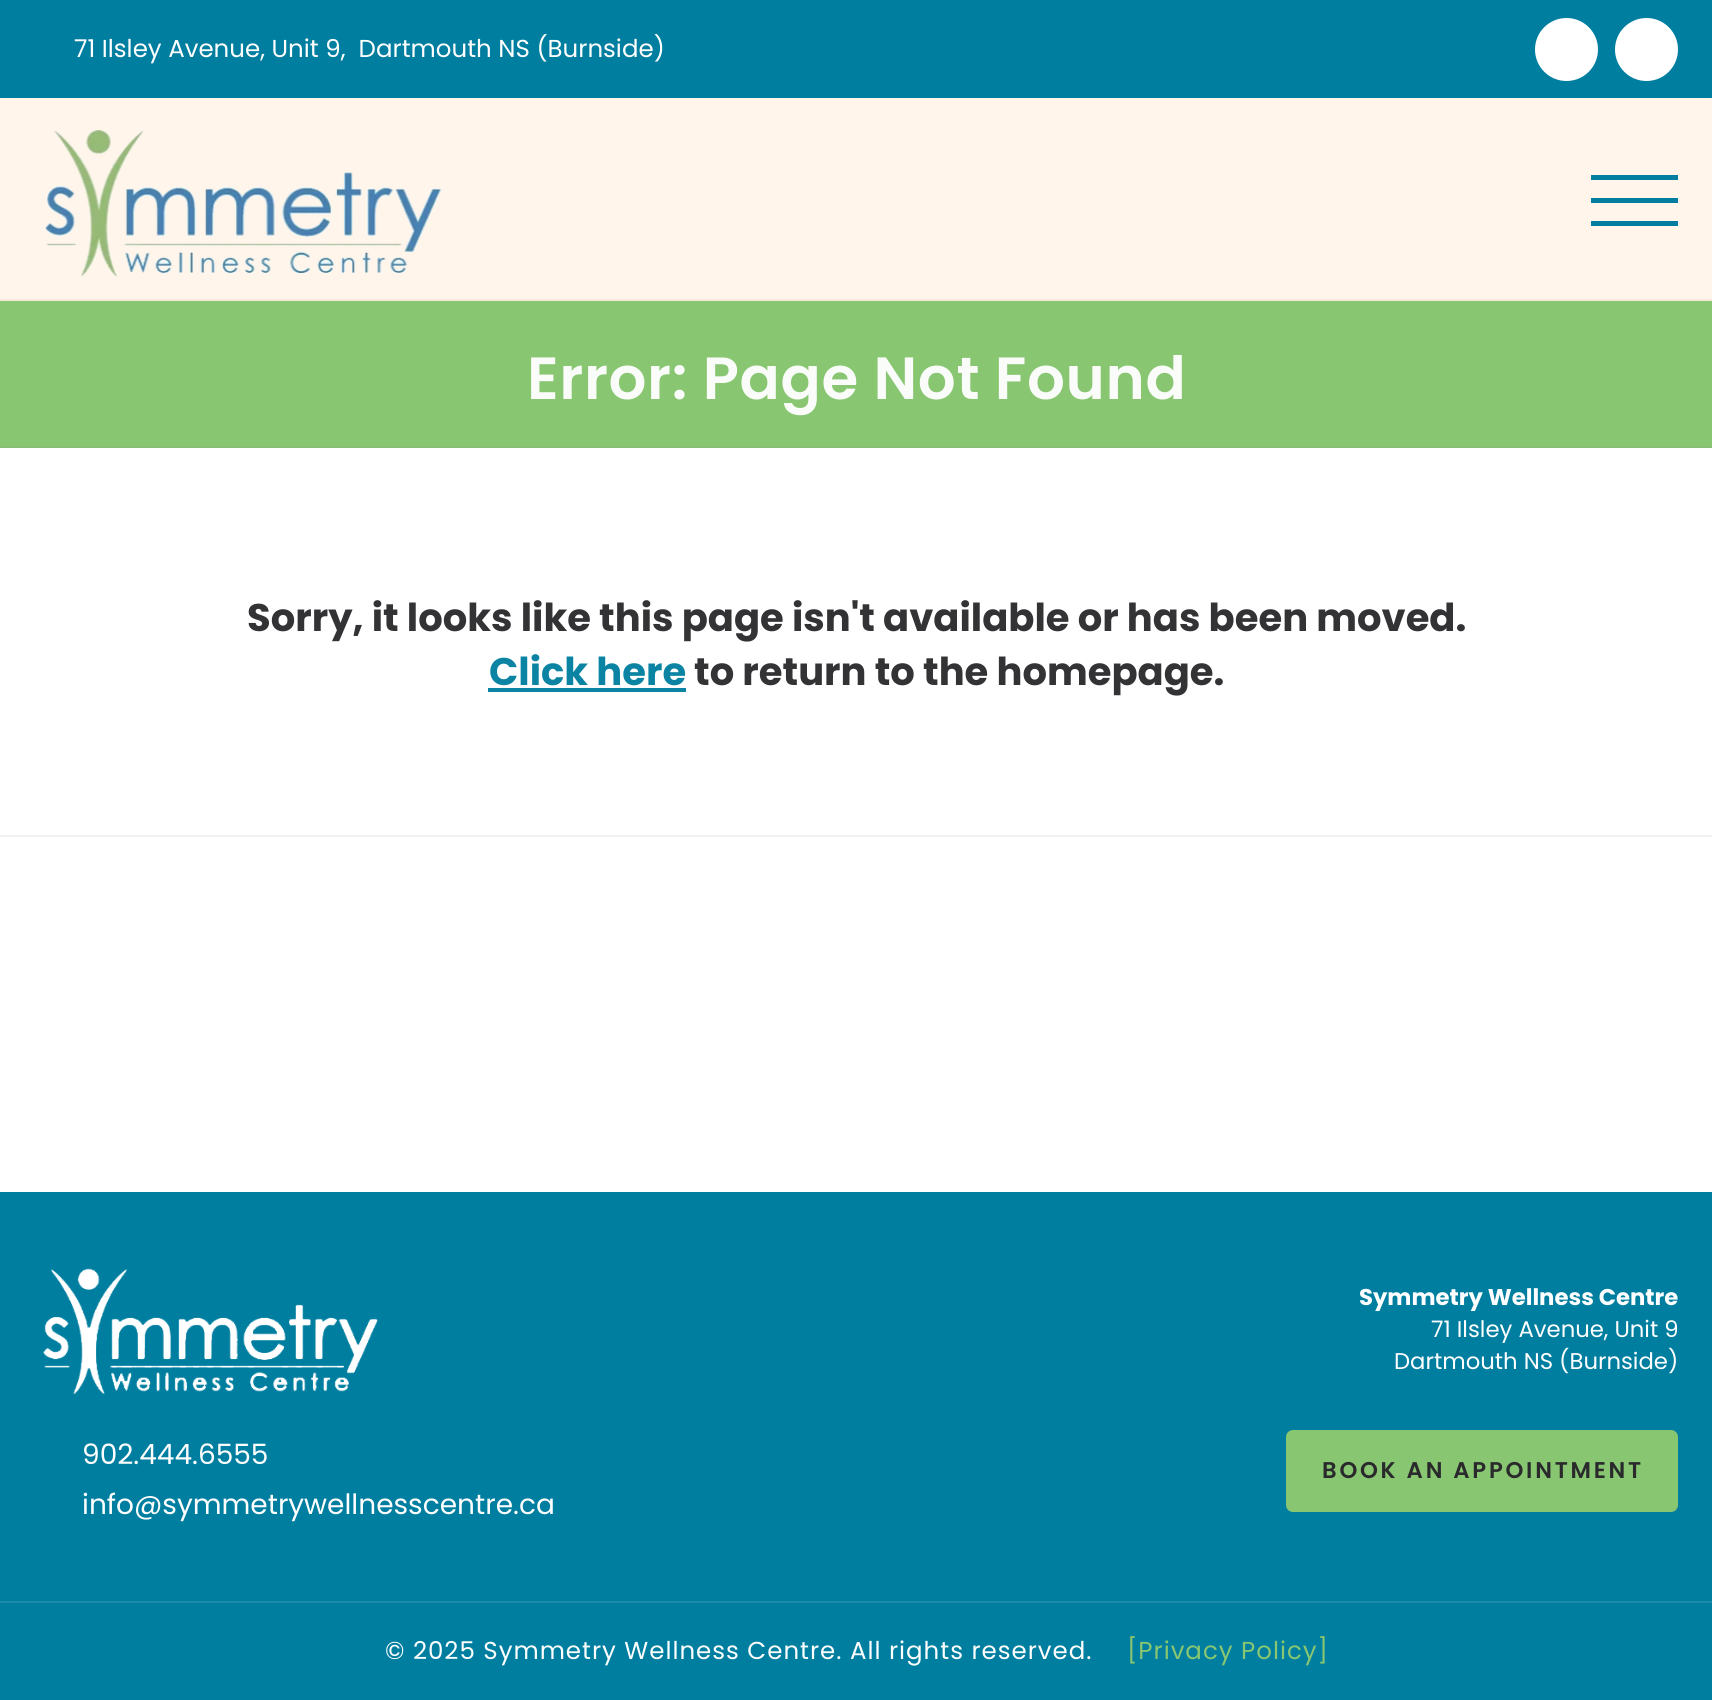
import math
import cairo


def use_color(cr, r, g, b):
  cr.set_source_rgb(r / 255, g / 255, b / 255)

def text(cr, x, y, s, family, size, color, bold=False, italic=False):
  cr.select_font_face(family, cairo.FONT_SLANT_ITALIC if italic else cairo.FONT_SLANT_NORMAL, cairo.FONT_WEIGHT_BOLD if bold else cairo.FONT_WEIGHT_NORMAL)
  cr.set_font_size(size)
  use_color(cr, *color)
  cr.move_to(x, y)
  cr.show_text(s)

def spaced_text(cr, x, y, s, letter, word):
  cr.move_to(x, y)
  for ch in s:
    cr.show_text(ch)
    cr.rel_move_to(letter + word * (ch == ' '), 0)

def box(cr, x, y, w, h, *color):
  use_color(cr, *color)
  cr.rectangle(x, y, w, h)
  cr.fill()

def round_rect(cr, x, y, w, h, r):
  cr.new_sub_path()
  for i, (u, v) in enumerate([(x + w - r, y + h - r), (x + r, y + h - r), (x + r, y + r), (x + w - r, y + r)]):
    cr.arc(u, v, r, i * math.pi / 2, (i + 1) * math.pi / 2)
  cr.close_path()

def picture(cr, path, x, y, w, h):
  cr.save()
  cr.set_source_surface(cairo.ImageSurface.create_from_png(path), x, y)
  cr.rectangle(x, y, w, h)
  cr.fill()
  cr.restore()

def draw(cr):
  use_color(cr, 255, 255, 255)
  cr.paint()
  box(cr, 0, 0, 1712, 98, 0, 126, 160)
  use_color(cr, 255, 255, 255)
  cr.arc(1566.5, 49.5, 31.5, 0, 2 * math.pi)
  cr.fill()
  cr.arc(1646.5, 49.5, 31.5, 0, 2 * math.pi)
  cr.fill()
  box(cr, 0, 98, 1712, 201, 255, 245, 235)
  picture(cr, "img_01.png", 45, 130, 397, 147)
  box(cr, 1591, 175, 87, 5, 0, 126, 160)
  box(cr, 1591, 198, 87, 5, 0, 126, 160)
  box(cr, 1591, 221, 87, 5, 0, 126, 160)
  box(cr, 0, 299, 1712, 2, 249, 233, 216)
  box(cr, 0, 301, 1712, 145, 136, 198, 113)
  box(cr, 0, 446, 1712, 2, 134, 190, 115)
  box(cr, 488, 688, 198, 4, 11, 132, 164)
  box(cr, 0, 835, 1712, 2, 241, 241, 242)
  box(cr, 0, 1192, 1712, 508, 0, 126, 160)
  picture(cr, "img_02.png", 43, 1268, 335, 127)
  use_color(cr, 136, 198, 113)
  round_rect(cr, 1286, 1430, 392, 82, 7)
  cr.fill()
  box(cr, 0, 1601, 1712, 2, 26, 139, 170)
  text(cr, 74, 57, "71 Ilsley Avenue, Unit 9,  Dartmouth NS (Burnside)", "Poppins", 24.5, (255, 255, 255))
  cr.select_font_face("Poppins SemiBold")
  cr.set_font_size(59.5)
  use_color(cr, 250, 252, 249)
  spaced_text(cr, 527, 399, "Error: Page Not Found", 0.6, 0)
  text(cr, 247, 631, "Sorry, it looks like this page isn't available or has been moved.", "Poppins", 38.5, (51, 51, 54), bold=True)
  text(cr, 489, 685, "Click here", "Poppins", 38.5, (11, 132, 164), bold=True)
  text(cr, 694, 685, "to return to the homepage.", "Poppins", 38.5, (51, 51, 54), bold=True)
  text(cr, 82, 1464, "902.444.6555", "Poppins", 28, (255, 255, 255))
  text(cr, 82, 1514, "info@symmetrywellnesscentre.ca", "Poppins", 28, (255, 255, 255))
  text(cr, 1359, 1305, "Symmetry Wellness Centre", "Poppins", 22.75, (255, 255, 255), bold=True)
  text(cr, 1431, 1337, "71 Ilsley Avenue, Unit 9", "Poppins", 22.75, (255, 255, 255))
  text(cr, 1394, 1369, "Dartmouth NS (Burnside)", "Poppins", 22.75, (255, 255, 255))
  cr.select_font_face("Poppins SemiBold")
  use_color(cr, 42, 42, 45)
  spaced_text(cr, 1322, 1478, "BOOK AN APPOINTMENT", 2.75, 0)
  cr.select_font_face("Poppins")
  cr.set_font_size(24.5)
  use_color(cr, 255, 255, 255)
  spaced_text(cr, 385, 1659, "© 2025 Symmetry Wellness Centre. All rights reserved.", 0.98, 0)
  use_color(cr, 136, 198, 113)
  spaced_text(cr, 1127, 1659, "[Privacy Policy]", 0.98, 0)


surface = cairo.ImageSurface(cairo.FORMAT_RGB24, 1712, 1700)
cr = cairo.Context(surface)
options = cairo.FontOptions()
options.set_hint_metrics(cairo.HINT_METRICS_OFF)
options.set_hint_style(cairo.HINT_STYLE_NONE)
cr.set_font_options(options)
cr.set_miter_limit(4)
draw(cr)
surface.write_to_png("out.png")
